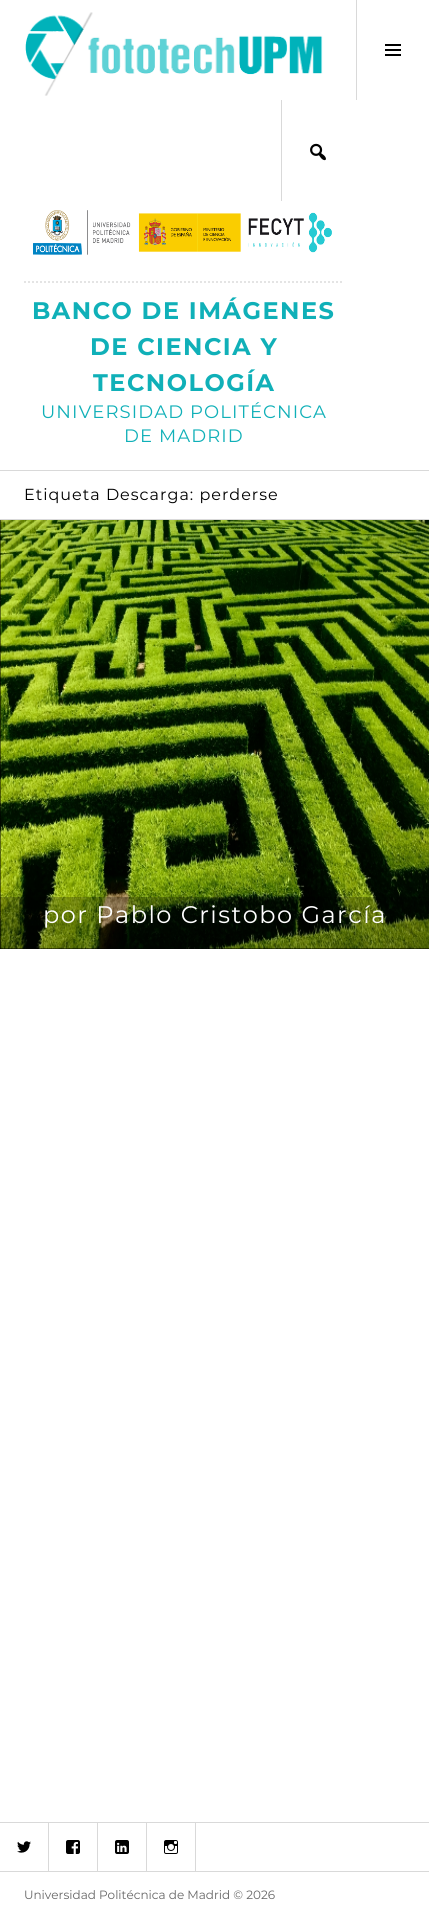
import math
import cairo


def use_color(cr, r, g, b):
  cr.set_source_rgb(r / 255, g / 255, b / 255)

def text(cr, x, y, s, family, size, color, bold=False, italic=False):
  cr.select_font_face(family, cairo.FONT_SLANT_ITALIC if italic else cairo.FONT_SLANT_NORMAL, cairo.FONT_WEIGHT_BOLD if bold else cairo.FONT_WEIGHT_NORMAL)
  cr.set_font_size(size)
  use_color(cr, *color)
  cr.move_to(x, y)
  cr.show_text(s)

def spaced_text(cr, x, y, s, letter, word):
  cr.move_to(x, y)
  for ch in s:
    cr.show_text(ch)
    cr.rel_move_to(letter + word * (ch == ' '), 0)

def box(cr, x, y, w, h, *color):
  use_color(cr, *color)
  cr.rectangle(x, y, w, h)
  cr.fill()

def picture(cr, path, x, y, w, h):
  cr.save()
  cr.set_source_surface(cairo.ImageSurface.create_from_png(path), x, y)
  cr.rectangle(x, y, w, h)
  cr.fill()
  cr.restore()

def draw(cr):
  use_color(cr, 255, 255, 255)
  cr.paint()
  box(cr, 0, 470, 429, 1, 217, 217, 217)
  picture(cr, "img_01.png", 25, 12, 298, 84)
  box(cr, 356, 0, 1, 100, 217, 217, 217)
  picture(cr, "img_02.png", 385, 44, 16, 12)
  box(cr, 281, 100, 1, 101, 217, 217, 217)
  picture(cr, "img_03.png", 310, 143, 16, 18)
  picture(cr, "img_04.png", 33, 210, 299, 45)
  cr.new_path()
  cr.move_to(24, 282)
  cr.line_to(344, 282)
  use_color(cr, 228, 228, 228)
  cr.set_dash([2, 2])
  cr.stroke()
  box(cr, 0, 519, 429, 1, 217, 217, 217)
  box(cr, 0, 520, 429, 429, 0, 0, 0)
  picture(cr, "img_05.png", 0, 520, 429, 429)
  cr.set_source_rgba(0, 0, 0, 0.25)
  cr.rectangle(0, 897, 429, 52)
  cr.fill()
  box(cr, 0, 1822, 429, 1, 217, 217, 217)
  picture(cr, "img_06.png", 17, 1841, 14, 12)
  cr.save()
  cr.rectangle(0, 1823, 429, 96)
  cr.clip()
  cr.rectangle(48.5, 1822.5, 49, 49)
  cr.set_line_width(1)
  cr.set_dash([])
  cr.stroke()
  cr.restore()
  picture(cr, "img_07.png", 66, 1840, 14, 14)
  cr.save()
  cr.rectangle(0, 1823, 429, 96)
  cr.clip()
  cr.rectangle(97.5, 1822.5, 49, 49)
  cr.set_line_width(1)
  cr.set_dash([])
  cr.stroke()
  cr.restore()
  picture(cr, "img_08.png", 115, 1840, 14, 14)
  cr.save()
  cr.rectangle(0, 1823, 429, 96)
  cr.clip()
  cr.rectangle(146.5, 1822.5, 49, 49)
  cr.set_line_width(1)
  cr.set_dash([])
  cr.stroke()
  cr.restore()
  picture(cr, "img_09.png", 164, 1840, 14, 14)
  box(cr, 0, 1871, 429, 1, 217, 217, 217)
  cr.select_font_face("Montserrat", cairo.FONT_SLANT_NORMAL, cairo.FONT_WEIGHT_BOLD)
  cr.set_font_size(24)
  use_color(cr, 16, 176, 184)
  spaced_text(cr, 32, 319, "BANCO DE IMÁGENES", 1.5, 0)
  spaced_text(cr, 90, 355, "DE CIENCIA Y", 1.5, 0)
  spaced_text(cr, 93, 391, "TECNOLOGÍA", 1.5, 0)
  cr.select_font_face("Montserrat")
  cr.set_font_size(18)
  spaced_text(cr, 41, 418, "UNIVERSIDAD POLITÉCNICA", 1.1, 0)
  spaced_text(cr, 124, 442, "DE MADRID", 1.1, 0)
  cr.set_font_size(16)
  use_color(cr, 0, 0, 0)
  spaced_text(cr, 24, 500, "Etiqueta Descarga: perderse", 1, 0)
  cr.set_font_size(24)
  use_color(cr, 255, 255, 255)
  spaced_text(cr, 43, 923, "por Pablo Cristobo García", 1.5, 0)
  text(cr, 24, 1899, "Universidad Politécnica de Madrid © 2026", "Montserrat", 12, (102, 102, 102))


surface = cairo.ImageSurface(cairo.FORMAT_RGB24, 429, 1919)
cr = cairo.Context(surface)
options = cairo.FontOptions()
options.set_hint_metrics(cairo.HINT_METRICS_OFF)
options.set_hint_style(cairo.HINT_STYLE_NONE)
cr.set_font_options(options)
cr.set_miter_limit(4)
draw(cr)
surface.write_to_png("out.png")
